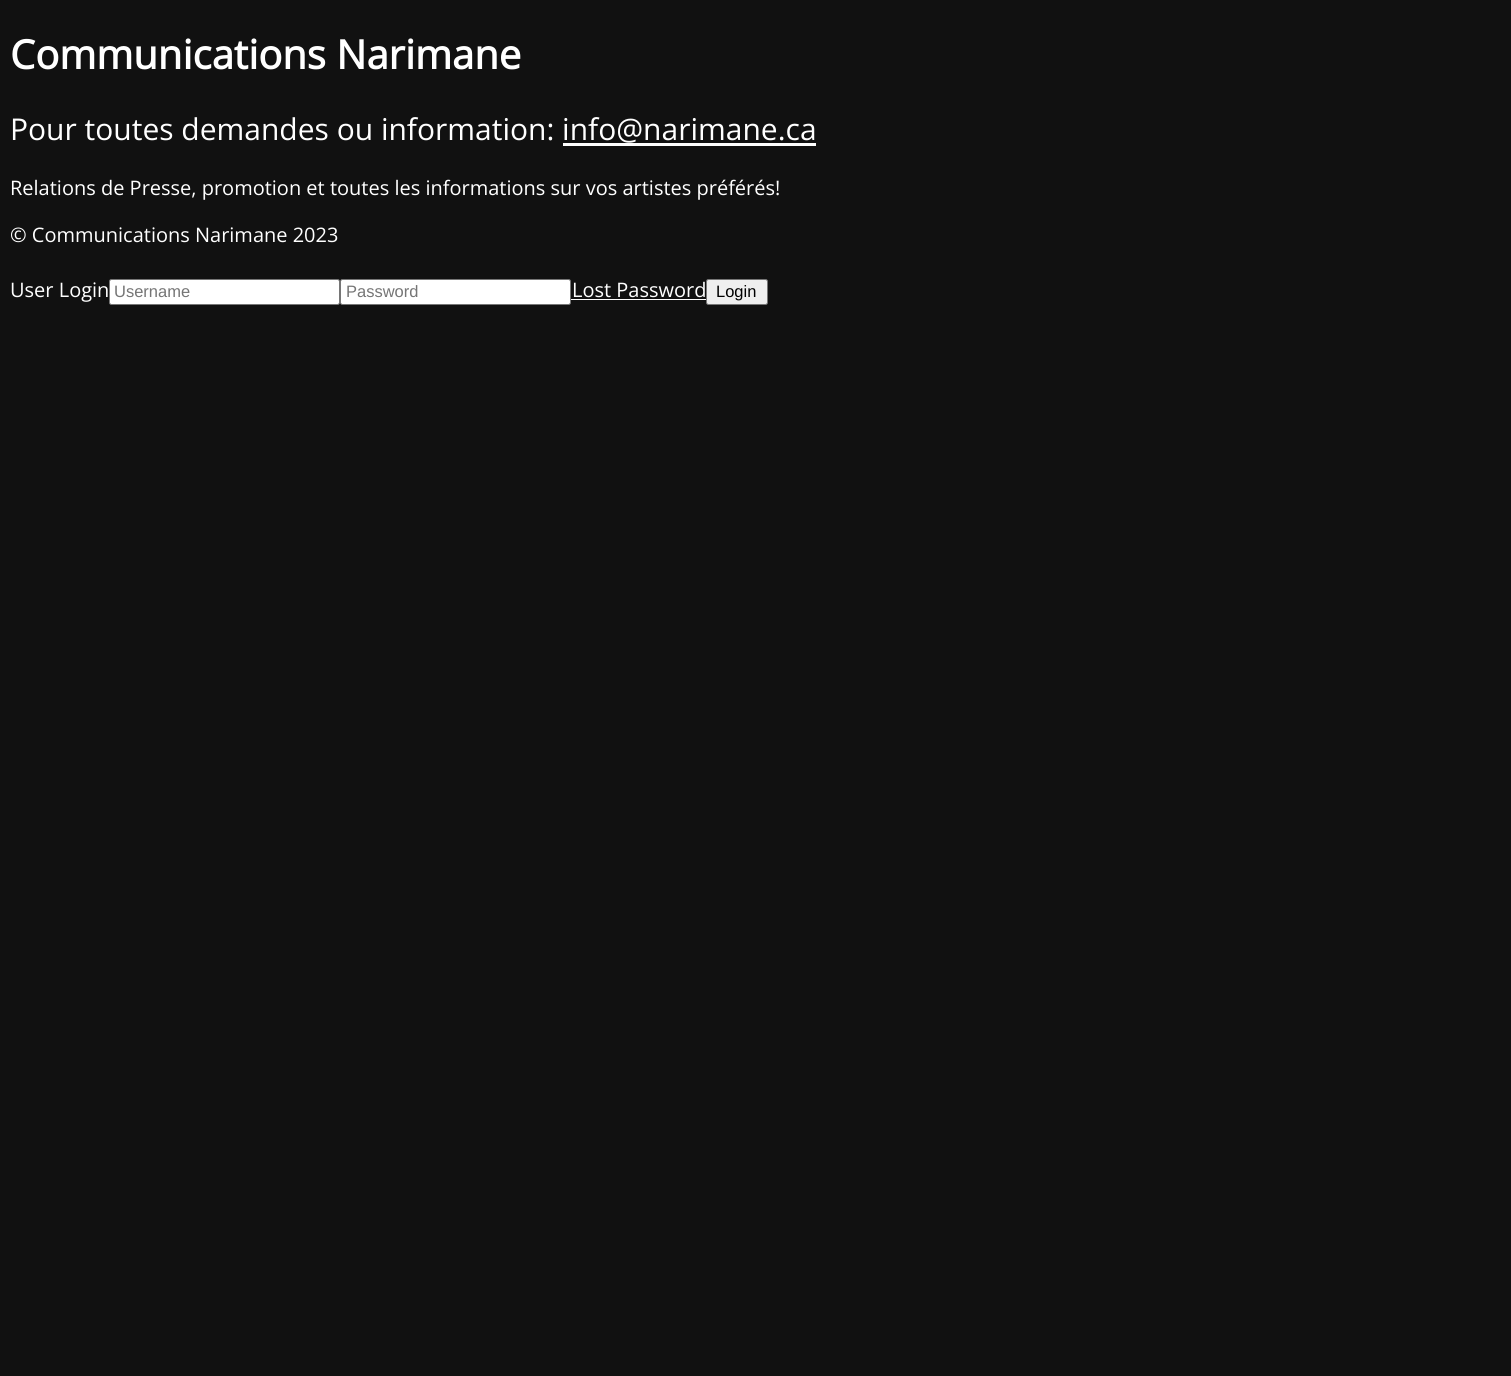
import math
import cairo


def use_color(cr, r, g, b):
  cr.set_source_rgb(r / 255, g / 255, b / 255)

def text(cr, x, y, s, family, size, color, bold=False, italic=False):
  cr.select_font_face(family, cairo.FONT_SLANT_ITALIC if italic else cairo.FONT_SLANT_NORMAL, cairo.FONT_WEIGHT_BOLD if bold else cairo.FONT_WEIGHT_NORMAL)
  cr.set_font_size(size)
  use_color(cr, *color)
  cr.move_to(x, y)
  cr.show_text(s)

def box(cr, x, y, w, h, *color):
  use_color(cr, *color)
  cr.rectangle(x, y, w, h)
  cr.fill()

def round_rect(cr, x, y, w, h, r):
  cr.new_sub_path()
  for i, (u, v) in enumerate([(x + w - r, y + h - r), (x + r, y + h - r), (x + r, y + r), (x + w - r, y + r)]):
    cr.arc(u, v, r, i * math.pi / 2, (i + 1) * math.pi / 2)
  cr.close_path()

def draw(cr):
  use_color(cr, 17, 17, 17)
  cr.paint()
  box(cr, 563, 143, 253, 3, 255, 255, 255)
  round_rect(cr, 109.5, 279.5, 230, 25, 2)
  cr.fill_preserve()
  use_color(cr, 118, 118, 118)
  cr.set_line_width(1)
  cr.stroke()
  use_color(cr, 255, 255, 255)
  round_rect(cr, 340.5, 279.5, 230, 25, 2)
  cr.fill_preserve()
  use_color(cr, 118, 118, 118)
  cr.stroke()
  box(cr, 571, 299, 135, 1, 255, 255, 255)
  use_color(cr, 239, 239, 239)
  round_rect(cr, 706.5, 279.5, 61, 25, 2)
  cr.fill_preserve()
  use_color(cr, 118, 118, 118)
  cr.stroke()
  text(cr, 10, 69, "Communications Narimane", "Open Sans", 40, (255, 255, 255), bold=True)
  text(cr, 10, 140, "Pour toutes demandes ou information: info@narimane.ca", "Open Sans", 30, (255, 255, 255))
  text(cr, 10, 195, "Relations de Presse, promotion et toutes les informations sur vos artistes préférés!", "Open Sans", 20, (255, 255, 255))
  text(cr, 10, 242, "© Communications Narimane 2023", "Open Sans", 20, (255, 255, 255))
  text(cr, 10, 297, "User Login", "Open Sans", 20, (255, 255, 255))
  text(cr, 114, 297, "Username", "Liberation Sans", 16.5, (117, 117, 117))
  text(cr, 346, 297, "Password", "Liberation Sans", 16.5, (117, 117, 117))
  text(cr, 572, 297, "Lost Password", "Open Sans", 20, (255, 255, 255))
  text(cr, 716, 297, "Login", "Liberation Sans", 16.5, (0, 0, 0))


surface = cairo.ImageSurface(cairo.FORMAT_RGB24, 1511, 1376)
cr = cairo.Context(surface)
options = cairo.FontOptions()
options.set_hint_metrics(cairo.HINT_METRICS_OFF)
options.set_hint_style(cairo.HINT_STYLE_NONE)
cr.set_font_options(options)
cr.set_miter_limit(4)
draw(cr)
surface.write_to_png("out.png")
